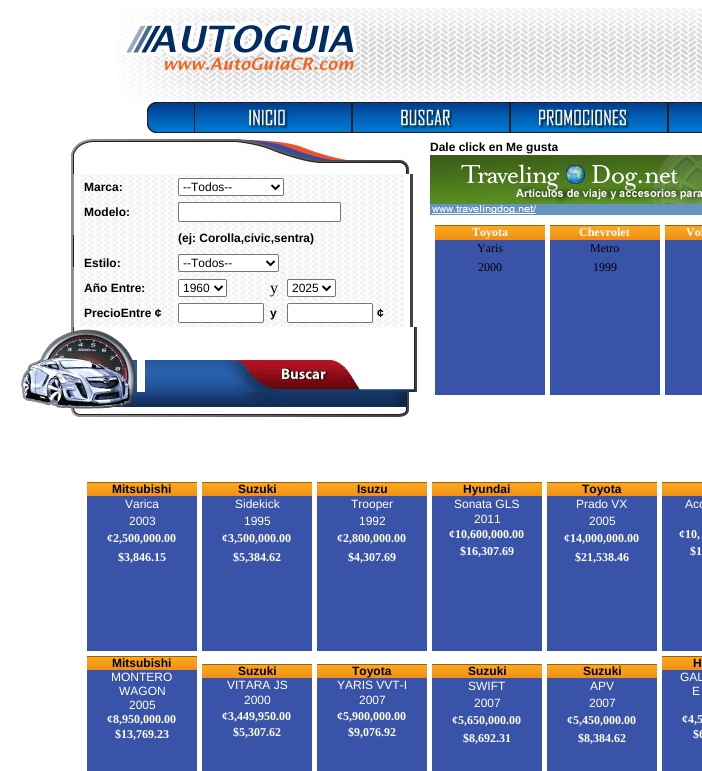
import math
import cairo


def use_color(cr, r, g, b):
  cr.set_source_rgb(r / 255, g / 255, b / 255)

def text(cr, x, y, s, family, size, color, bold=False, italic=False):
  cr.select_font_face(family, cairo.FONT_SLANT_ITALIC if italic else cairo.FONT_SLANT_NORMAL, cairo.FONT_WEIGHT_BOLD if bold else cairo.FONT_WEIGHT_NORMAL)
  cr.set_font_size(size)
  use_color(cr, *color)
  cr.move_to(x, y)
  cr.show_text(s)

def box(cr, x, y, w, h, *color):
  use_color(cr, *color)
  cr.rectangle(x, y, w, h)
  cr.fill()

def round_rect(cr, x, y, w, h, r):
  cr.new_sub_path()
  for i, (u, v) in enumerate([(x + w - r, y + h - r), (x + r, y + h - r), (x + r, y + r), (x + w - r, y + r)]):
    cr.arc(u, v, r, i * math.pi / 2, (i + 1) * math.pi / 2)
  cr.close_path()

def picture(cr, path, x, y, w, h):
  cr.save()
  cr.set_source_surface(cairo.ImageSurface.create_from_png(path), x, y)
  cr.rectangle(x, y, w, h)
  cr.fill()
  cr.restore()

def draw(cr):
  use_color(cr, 255, 255, 255)
  cr.paint()
  picture(cr, "img_01.png", 117, 8, 585, 94)
  picture(cr, "img_02.png", 147, 102, 15, 31)
  picture(cr, "img_03.png", 162, 102, 16, 31)
  picture(cr, "img_03.png", 178, 102, 16, 31)
  picture(cr, "img_04.png", 194, 102, 158, 31)
  picture(cr, "img_05.png", 352, 102, 158, 31)
  picture(cr, "img_06.png", 510, 102, 158, 31)
  picture(cr, "img_07.png", 668, 102, 34, 31)
  picture(cr, "img_08.png", 69, 133, 344, 41)
  box(cr, 71, 174, 3, 153, 143, 143, 143)
  box(cr, 73, 235, 1, 32, 33, 33, 33)
  picture(cr, "img_09.png", 80, 175, 324, 152)
  use_color(cr, 255, 255, 255)
  round_rect(cr, 178.5, 178.5, 105, 17, 1.5)
  cr.fill_preserve()
  use_color(cr, 118, 118, 118)
  cr.set_line_width(1)
  cr.stroke()
  cr.new_path()
  cr.move_to(271.5, 185)
  cr.line_to(275.5, 189)
  cr.line_to(279.5, 185)
  use_color(cr, 0, 0, 0)
  cr.set_line_width(2)
  cr.stroke()
  use_color(cr, 255, 255, 255)
  round_rect(cr, 178.5, 202.5, 162, 19, 1.5)
  cr.fill_preserve()
  use_color(cr, 118, 118, 118)
  cr.set_line_width(1)
  cr.stroke()
  use_color(cr, 255, 255, 255)
  round_rect(cr, 178.5, 254.5, 100, 17, 1.5)
  cr.fill_preserve()
  use_color(cr, 118, 118, 118)
  cr.stroke()
  cr.new_path()
  cr.move_to(266.5, 261)
  cr.line_to(270.5, 265)
  cr.line_to(274.5, 261)
  use_color(cr, 0, 0, 0)
  cr.set_line_width(2)
  cr.stroke()
  use_color(cr, 255, 255, 255)
  round_rect(cr, 178.5, 279.5, 48, 17, 1.5)
  cr.fill_preserve()
  use_color(cr, 118, 118, 118)
  cr.set_line_width(1)
  cr.stroke()
  cr.new_path()
  cr.move_to(214.5, 286)
  cr.line_to(218.5, 290)
  cr.line_to(222.5, 286)
  use_color(cr, 0, 0, 0)
  cr.set_line_width(2)
  cr.stroke()
  use_color(cr, 255, 255, 255)
  round_rect(cr, 287.5, 279.5, 48, 17, 1.5)
  cr.fill_preserve()
  use_color(cr, 118, 118, 118)
  cr.set_line_width(1)
  cr.stroke()
  cr.new_path()
  cr.move_to(322.5, 286)
  cr.line_to(326.5, 290)
  cr.line_to(330.5, 286)
  use_color(cr, 0, 0, 0)
  cr.set_line_width(2)
  cr.stroke()
  use_color(cr, 255, 255, 255)
  round_rect(cr, 178.5, 303.5, 85, 19, 1.5)
  cr.fill_preserve()
  use_color(cr, 118, 118, 118)
  cr.set_line_width(1)
  cr.stroke()
  use_color(cr, 255, 255, 255)
  round_rect(cr, 287.5, 303.5, 85, 19, 1.5)
  cr.fill_preserve()
  use_color(cr, 118, 118, 118)
  cr.stroke()
  box(cr, 410, 174, 3, 153, 67, 67, 67)
  picture(cr, "img_10.png", 16, 327, 121, 65)
  picture(cr, "img_11.png", 145, 359, 262, 33)
  picture(cr, "img_12.png", 407, 327, 10, 65)
  picture(cr, "img_13.png", 20, 392, 395, 25)
  picture(cr, "img_14.png", 430, 155, 272, 60)
  picture(cr, "img_15.png", 435, 225, 110, 15)
  box(cr, 435, 240, 110, 155, 57, 83, 168)
  picture(cr, "img_15.png", 550, 225, 110, 15)
  box(cr, 550, 240, 110, 155, 57, 83, 168)
  picture(cr, "img_16.png", 665, 225, 37, 15)
  box(cr, 665, 240, 37, 155, 57, 83, 168)
  picture(cr, "img_17.png", 87, 482, 110, 14)
  box(cr, 87, 496, 110, 155, 57, 83, 168)
  picture(cr, "img_17.png", 202, 482, 110, 14)
  box(cr, 202, 496, 110, 155, 57, 83, 168)
  picture(cr, "img_17.png", 317, 482, 110, 14)
  box(cr, 317, 496, 110, 155, 57, 83, 168)
  picture(cr, "img_17.png", 432, 482, 110, 14)
  box(cr, 432, 496, 110, 155, 57, 83, 168)
  picture(cr, "img_17.png", 547, 482, 110, 14)
  box(cr, 547, 496, 110, 155, 57, 83, 168)
  picture(cr, "img_18.png", 662, 482, 40, 14)
  box(cr, 662, 496, 40, 155, 57, 83, 168)
  picture(cr, "img_17.png", 87, 656, 110, 14)
  box(cr, 87, 670, 110, 101, 57, 83, 168)
  picture(cr, "img_17.png", 202, 664, 110, 14)
  box(cr, 202, 678, 110, 93, 57, 83, 168)
  picture(cr, "img_17.png", 317, 664, 110, 14)
  box(cr, 317, 678, 110, 93, 57, 83, 168)
  picture(cr, "img_17.png", 432, 664, 110, 14)
  box(cr, 432, 678, 110, 93, 57, 83, 168)
  picture(cr, "img_17.png", 547, 664, 110, 14)
  box(cr, 547, 678, 110, 93, 57, 83, 168)
  picture(cr, "img_18.png", 662, 656, 40, 14)
  box(cr, 662, 670, 40, 101, 57, 83, 168)
  text(cr, 84, 191, "Marca:", "Liberation Sans", 12, (0, 0, 0), bold=True)
  text(cr, 183, 191, "--Todos--", "Liberation Sans", 12, (0, 0, 0))
  text(cr, 84, 216, "Modelo:", "Liberation Sans", 12, (0, 0, 0), bold=True)
  text(cr, 178, 242, "(ej: Corolla,civic,sentra)", "Liberation Sans", 12, (0, 0, 0), bold=True)
  text(cr, 84, 267, "Estilo:", "Liberation Sans", 12, (0, 0, 0), bold=True)
  text(cr, 183, 267, "--Todos--", "Liberation Sans", 12, (0, 0, 0))
  text(cr, 84, 292, "Año Entre:", "Liberation Sans", 12, (0, 0, 0), bold=True)
  text(cr, 183, 292, "1960", "Liberation Sans", 12, (0, 0, 0))
  text(cr, 270, 293, "y", "Liberation Serif", 16, (0, 0, 0))
  text(cr, 292, 292, "2025", "Liberation Sans", 12, (0, 0, 0))
  text(cr, 84, 317, "PrecioEntre ¢", "Liberation Sans", 12, (0, 0, 0), bold=True)
  text(cr, 270, 317, "y", "Liberation Sans", 12, (0, 0, 0), bold=True)
  text(cr, 377, 317, "¢", "Liberation Sans", 12, (0, 0, 0), bold=True)
  text(cr, 430, 151, "Dale click en Me gusta", "Liberation Sans", 12, (0, 0, 0), bold=True)
  text(cr, 472, 236, "Toyota", "Liberation Serif", 12, (255, 255, 255), bold=True)
  text(cr, 477, 252, "Yaris", "Liberation Serif", 12, (0, 0, 0))
  text(cr, 478, 271, "2000", "Liberation Serif", 12, (0, 0, 0))
  text(cr, 579, 236, "Chevrolet", "Liberation Serif", 12, (255, 255, 255), bold=True)
  text(cr, 590, 252, "Metro", "Liberation Serif", 12, (0, 0, 0))
  text(cr, 593, 271, "1999", "Liberation Serif", 12, (0, 0, 0))
  text(cr, 686, 236, "Vol", "Liberation Serif", 12, (255, 255, 255), bold=True)
  text(cr, 112, 493, "Mitsubishi", "Liberation Sans", 12, (0, 0, 0), bold=True)
  text(cr, 125, 508, "Varica", "Liberation Sans", 12, (255, 255, 255))
  text(cr, 129, 525, "2003", "Liberation Sans", 12, (255, 255, 255))
  text(cr, 107, 542, "¢2,500,000.00", "Liberation Serif", 12, (255, 255, 255), bold=True)
  text(cr, 118, 561, "$3,846.15", "Liberation Serif", 12, (255, 255, 255), bold=True)
  text(cr, 238, 493, "Suzuki", "Liberation Sans", 12, (0, 0, 0), bold=True)
  text(cr, 235, 508, "Sidekick", "Liberation Sans", 12, (255, 255, 255))
  text(cr, 244, 525, "1995", "Liberation Sans", 12, (255, 255, 255))
  text(cr, 222, 542, "¢3,500,000.00", "Liberation Serif", 12, (255, 255, 255), bold=True)
  text(cr, 233, 561, "$5,384.62", "Liberation Serif", 12, (255, 255, 255), bold=True)
  text(cr, 357, 493, "Isuzu", "Liberation Sans", 12, (0, 0, 0), bold=True)
  text(cr, 351, 508, "Trooper", "Liberation Sans", 12, (255, 255, 255))
  text(cr, 359, 525, "1992", "Liberation Sans", 12, (255, 255, 255))
  text(cr, 337, 542, "¢2,800,000.00", "Liberation Serif", 12, (255, 255, 255), bold=True)
  text(cr, 348, 561, "$4,307.69", "Liberation Serif", 12, (255, 255, 255), bold=True)
  text(cr, 463, 493, "Hyundai", "Liberation Sans", 12, (0, 0, 0), bold=True)
  text(cr, 454, 508, "Sonata GLS", "Liberation Sans", 12, (255, 255, 255))
  text(cr, 474, 523, "2011", "Liberation Sans", 12, (255, 255, 255))
  text(cr, 449, 538, "¢10,600,000.00", "Liberation Serif", 12, (255, 255, 255), bold=True)
  text(cr, 460, 555, "$16,307.69", "Liberation Serif", 12, (255, 255, 255), bold=True)
  text(cr, 582, 493, "Toyota", "Liberation Sans", 12, (0, 0, 0), bold=True)
  text(cr, 576, 508, "Prado VX", "Liberation Sans", 12, (255, 255, 255))
  text(cr, 589, 525, "2005", "Liberation Sans", 12, (255, 255, 255))
  text(cr, 564, 542, "¢14,000,000.00", "Liberation Serif", 12, (255, 255, 255), bold=True)
  text(cr, 575, 561, "$21,538.46", "Liberation Serif", 12, (255, 255, 255), bold=True)
  text(cr, 685, 508, "Acc", "Liberation Sans", 12, (255, 255, 255))
  text(cr, 679, 538, "¢10,", "Liberation Serif", 12, (255, 255, 255), bold=True)
  text(cr, 690, 555, "$1", "Liberation Serif", 12, (255, 255, 255), bold=True)
  text(cr, 112, 667, "Mitsubishi", "Liberation Sans", 12, (0, 0, 0), bold=True)
  text(cr, 111, 681, "MONTERO", "Liberation Sans", 12, (255, 255, 255))
  text(cr, 119, 695, "WAGON", "Liberation Sans", 12, (255, 255, 255))
  text(cr, 129, 709, "2005", "Liberation Sans", 12, (255, 255, 255))
  text(cr, 107, 723, "¢8,950,000.00", "Liberation Serif", 12, (255, 255, 255), bold=True)
  text(cr, 115, 738, "$13,769.23", "Liberation Serif", 12, (255, 255, 255), bold=True)
  text(cr, 238, 675, "Suzuki", "Liberation Sans", 12, (0, 0, 0), bold=True)
  text(cr, 227, 689, "VITARA JS", "Liberation Sans", 12, (255, 255, 255))
  text(cr, 244, 704, "2000", "Liberation Sans", 12, (255, 255, 255))
  text(cr, 222, 720, "¢3,449,950.00", "Liberation Serif", 12, (255, 255, 255), bold=True)
  text(cr, 233, 736, "$5,307.62", "Liberation Serif", 12, (255, 255, 255), bold=True)
  text(cr, 352, 675, "Toyota", "Liberation Sans", 12, (0, 0, 0), bold=True)
  text(cr, 337, 689, "YARIS VVT-I", "Liberation Sans", 12, (255, 255, 255))
  text(cr, 359, 704, "2007", "Liberation Sans", 12, (255, 255, 255))
  text(cr, 337, 720, "¢5,900,000.00", "Liberation Serif", 12, (255, 255, 255), bold=True)
  text(cr, 348, 736, "$9,076.92", "Liberation Serif", 12, (255, 255, 255), bold=True)
  text(cr, 468, 675, "Suzuki", "Liberation Sans", 12, (0, 0, 0), bold=True)
  text(cr, 468, 690, "SWIFT", "Liberation Sans", 12, (255, 255, 255))
  text(cr, 474, 707, "2007", "Liberation Sans", 12, (255, 255, 255))
  text(cr, 452, 724, "¢5,650,000.00", "Liberation Serif", 12, (255, 255, 255), bold=True)
  text(cr, 463, 742, "$8,692.31", "Liberation Serif", 12, (255, 255, 255), bold=True)
  text(cr, 583, 675, "Suzuki", "Liberation Sans", 12, (0, 0, 0), bold=True)
  text(cr, 590, 690, "APV", "Liberation Sans", 12, (255, 255, 255))
  text(cr, 589, 707, "2007", "Liberation Sans", 12, (255, 255, 255))
  text(cr, 567, 724, "¢5,450,000.00", "Liberation Serif", 12, (255, 255, 255), bold=True)
  text(cr, 578, 742, "$8,384.62", "Liberation Serif", 12, (255, 255, 255), bold=True)
  text(cr, 693, 667, "H", "Liberation Sans", 12, (0, 0, 0), bold=True)
  text(cr, 680, 681, "GAL", "Liberation Sans", 12, (255, 255, 255))
  text(cr, 692, 695, "E", "Liberation Sans", 12, (255, 255, 255))
  text(cr, 682, 723, "¢4,5", "Liberation Serif", 12, (255, 255, 255), bold=True)
  text(cr, 693, 738, "$6", "Liberation Serif", 12, (255, 255, 255), bold=True)


surface = cairo.ImageSurface(cairo.FORMAT_RGB24, 702, 771)
cr = cairo.Context(surface)
options = cairo.FontOptions()
options.set_hint_metrics(cairo.HINT_METRICS_OFF)
options.set_hint_style(cairo.HINT_STYLE_NONE)
cr.set_font_options(options)
cr.set_miter_limit(4)
draw(cr)
surface.write_to_png("out.png")
